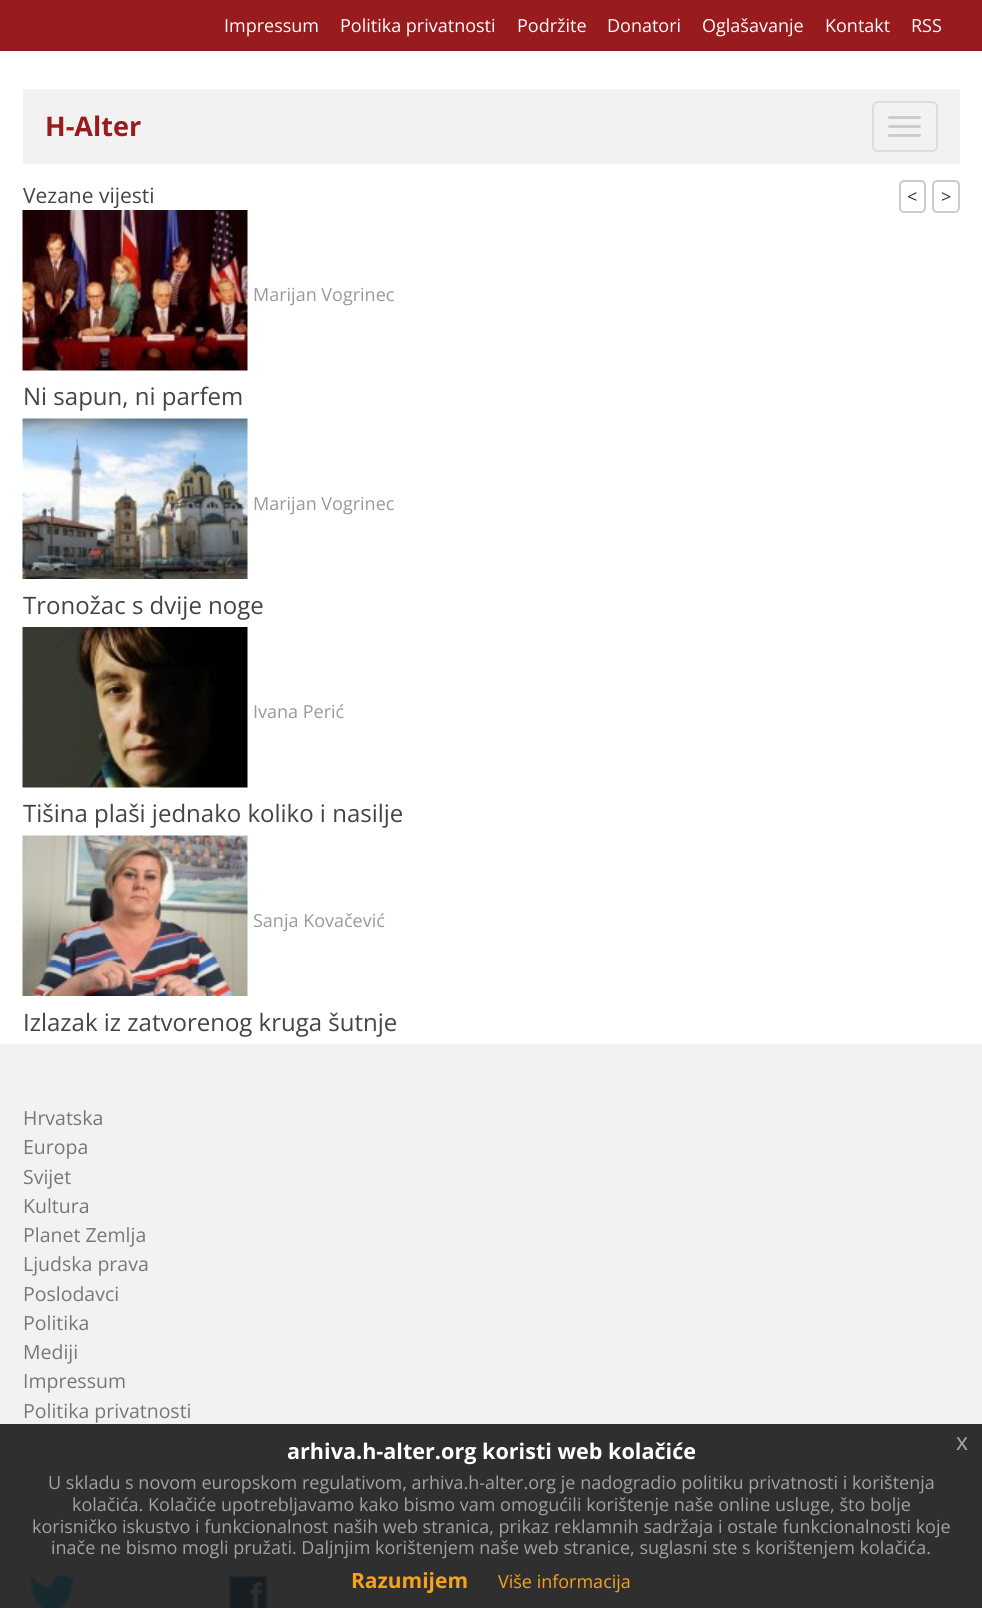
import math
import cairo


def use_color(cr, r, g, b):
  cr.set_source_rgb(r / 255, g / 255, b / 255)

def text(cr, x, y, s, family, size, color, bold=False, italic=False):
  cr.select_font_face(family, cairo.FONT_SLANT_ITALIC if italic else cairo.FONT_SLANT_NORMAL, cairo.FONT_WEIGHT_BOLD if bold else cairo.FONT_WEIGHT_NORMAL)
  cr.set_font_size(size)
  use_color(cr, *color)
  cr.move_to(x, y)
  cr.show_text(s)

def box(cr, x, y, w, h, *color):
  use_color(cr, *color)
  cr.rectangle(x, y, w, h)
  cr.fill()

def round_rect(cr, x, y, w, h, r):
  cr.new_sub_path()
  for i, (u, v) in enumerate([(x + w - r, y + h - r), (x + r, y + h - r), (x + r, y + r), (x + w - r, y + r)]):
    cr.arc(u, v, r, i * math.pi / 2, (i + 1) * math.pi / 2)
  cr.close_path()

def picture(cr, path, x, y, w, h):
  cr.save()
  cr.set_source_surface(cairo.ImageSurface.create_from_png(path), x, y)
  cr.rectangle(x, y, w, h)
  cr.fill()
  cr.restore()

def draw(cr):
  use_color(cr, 242, 242, 242)
  cr.paint()
  box(cr, 0, 1424, 982, 184, 47, 47, 47)
  box(cr, 0, 0, 982, 51, 152, 27, 30)
  box(cr, 0, 51, 982, 993, 255, 255, 255)
  box(cr, 23, 89, 937, 75, 242, 242, 242)
  round_rect(cr, 873, 102, 64, 49, 5)
  use_color(cr, 221, 221, 221)
  cr.stroke()
  use_color(cr, 204, 204, 204)
  round_rect(cr, 888, 116, 33, 3, 1.5)
  cr.fill()
  round_rect(cr, 888, 125, 33, 3, 1.5)
  cr.fill()
  round_rect(cr, 888, 134, 33, 3, 1.5)
  cr.fill()
  round_rect(cr, 900, 181, 25, 31, 4)
  cr.stroke()
  round_rect(cr, 933, 181, 26, 31, 4)
  cr.stroke()
  picture(cr, "img_01.png", 22, 210, 226, 161)
  picture(cr, "img_02.png", 22, 418, 226, 161)
  picture(cr, "img_03.png", 22, 627, 226, 161)
  picture(cr, "img_04.png", 22, 835, 226, 161)
  picture(cr, "img_05.png", 24, 1560, 53, 48)
  picture(cr, "img_06.png", 229, 1576, 39, 32)
  text(cr, 224, 32, "Impressum", "Open Sans", 18, (255, 255, 255))
  text(cr, 340, 32, "Politika privatnosti", "Open Sans", 18, (255, 255, 255))
  text(cr, 517, 32, "Podržite", "Open Sans", 18, (255, 255, 255))
  text(cr, 607, 32, "Donatori", "Open Sans", 18, (255, 255, 255))
  text(cr, 702, 32, "Oglašavanje", "Open Sans", 18, (255, 255, 255))
  text(cr, 825, 32, "Kontakt", "Open Sans", 18, (255, 255, 255))
  text(cr, 911, 32, "RSS", "Open Sans", 18, (255, 255, 255))
  text(cr, 45, 136, "H-Alter", "Open Sans", 27, (152, 27, 30), bold=True)
  text(cr, 23, 203, "Vezane vijesti", "Open Sans", 21, (68, 68, 68))
  text(cr, 907, 203, "<", "Open Sans", 18, (51, 51, 51))
  text(cr, 941, 203, ">", "Open Sans", 18, (51, 51, 51))
  text(cr, 253, 301, "Marijan Vogrinec", "Open Sans", 18, (153, 153, 153))
  text(cr, 23, 405, "Ni sapun, ni parfem", "Open Sans", 24, (68, 68, 68))
  text(cr, 253, 510, "Marijan Vogrinec", "Open Sans", 18, (153, 153, 153))
  text(cr, 23, 614, "Tronožac s dvije noge", "Open Sans", 24, (68, 68, 68))
  text(cr, 253, 718, "Ivana Perić", "Open Sans", 18, (153, 153, 153))
  text(cr, 23, 822, "Tišina plaši jednako koliko i nasilje", "Open Sans", 24, (68, 68, 68))
  text(cr, 253, 927, "Sanja Kovačević", "Open Sans", 18, (153, 153, 153))
  text(cr, 23, 1031, "Izlazak iz zatvorenog kruga šutnje", "Open Sans", 24, (68, 68, 68))
  text(cr, 23, 1125, "Hrvatska", "Open Sans", 19.5, (119, 119, 119))
  text(cr, 23, 1154, "Europa", "Open Sans", 19.5, (119, 119, 119))
  text(cr, 23, 1184, "Svijet", "Open Sans", 19.5, (119, 119, 119))
  text(cr, 23, 1213, "Kultura", "Open Sans", 19.5, (119, 119, 119))
  text(cr, 23, 1242, "Planet Zemlja", "Open Sans", 19.5, (119, 119, 119))
  text(cr, 23, 1271, "Ljudska prava", "Open Sans", 19.5, (119, 119, 119))
  text(cr, 23, 1301, "Poslodavci", "Open Sans", 19.5, (119, 119, 119))
  text(cr, 23, 1330, "Politika", "Open Sans", 19.5, (119, 119, 119))
  text(cr, 23, 1359, "Mediji", "Open Sans", 19.5, (119, 119, 119))
  text(cr, 23, 1388, "Impressum", "Open Sans", 19.5, (119, 119, 119))
  text(cr, 23, 1418, "Politika privatnosti", "Open Sans", 19.5, (119, 119, 119))
  text(cr, 287, 1459, "arhiva.h-alter.org koristi web kolačiće", "Open Sans", 21.6, (255, 255, 255), bold=True)
  text(cr, 956, 1450, "x", "Liberation Sans", 24, (162, 162, 162))
  text(cr, 48, 1489, "U skladu s novom europskom regulativom, arhiva.h-alter.org je nadogradio politiku privatnosti i korištenja", "Open Sans", 18, (162, 162, 162))
  text(cr, 72, 1511, "kolačića. Kolačiće upotrebljavamo kako bismo vam omogućili korištenje naše online usluge, što bolje", "Open Sans", 18, (162, 162, 162))
  text(cr, 32, 1533, "korisničko iskustvo i funkcionalnost naših web stranica, prikaz reklamnih sadržaja i ostale funkcionalnosti koje", "Open Sans", 18, (162, 162, 162))
  text(cr, 51, 1554, "inače ne bismo mogli pružati. Daljnjim korištenjem naše web stranice, suglasni ste s korištenjem kolačića.", "Open Sans", 18, (162, 162, 162))
  text(cr, 351, 1588, "Razumijem", "Open Sans", 21, (246, 162, 29), bold=True)
  text(cr, 498, 1588, "Više informacija", "Open Sans", 18, (246, 162, 29))


surface = cairo.ImageSurface(cairo.FORMAT_RGB24, 982, 1608)
cr = cairo.Context(surface)
options = cairo.FontOptions()
options.set_hint_metrics(cairo.HINT_METRICS_OFF)
options.set_hint_style(cairo.HINT_STYLE_NONE)
cr.set_font_options(options)
cr.set_miter_limit(4)
draw(cr)
surface.write_to_png("out.png")
